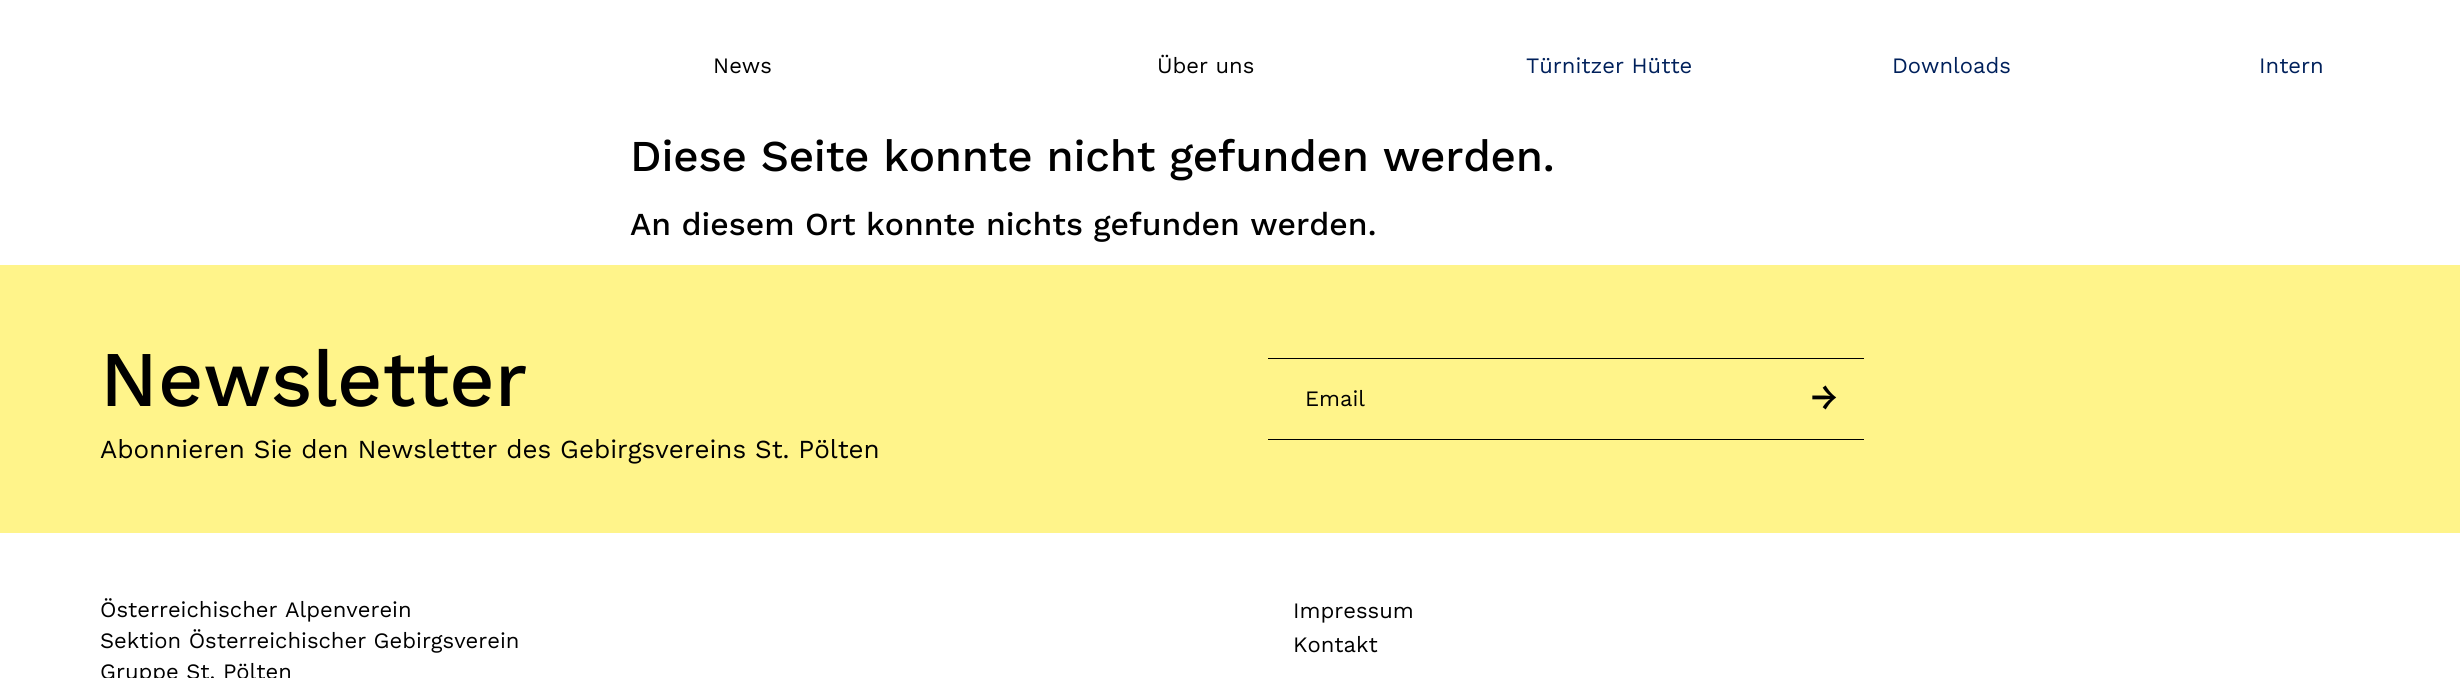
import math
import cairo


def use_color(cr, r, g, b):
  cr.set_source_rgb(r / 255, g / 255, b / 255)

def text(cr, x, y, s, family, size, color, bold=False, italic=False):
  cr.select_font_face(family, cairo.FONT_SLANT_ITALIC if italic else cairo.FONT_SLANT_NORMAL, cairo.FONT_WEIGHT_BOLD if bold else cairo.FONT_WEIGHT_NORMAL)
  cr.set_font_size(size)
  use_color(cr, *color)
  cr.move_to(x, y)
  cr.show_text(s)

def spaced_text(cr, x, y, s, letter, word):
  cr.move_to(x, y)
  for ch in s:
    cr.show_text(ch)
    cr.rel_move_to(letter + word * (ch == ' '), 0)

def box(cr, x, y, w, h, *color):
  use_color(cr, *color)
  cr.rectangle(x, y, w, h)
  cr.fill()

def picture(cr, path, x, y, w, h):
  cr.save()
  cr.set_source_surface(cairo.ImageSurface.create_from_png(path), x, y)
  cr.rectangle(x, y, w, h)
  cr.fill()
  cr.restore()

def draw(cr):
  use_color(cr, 255, 255, 255)
  cr.paint()
  box(cr, 0, 265, 2460, 268, 255, 244, 138)
  box(cr, 1268, 358, 596, 1, 0, 0, 0)
  box(cr, 1268, 439, 596, 1, 0, 0, 0)
  picture(cr, "img_01.png", 1812, 385, 25, 25)
  text(cr, 713, 73, "News", "Work Sans", 22, (0, 0, 0))
  text(cr, 1157, 73, "Über uns", "Work Sans", 22, (0, 0, 0))
  text(cr, 1526, 73, "Türnitzer Hütte", "Work Sans", 22, (0, 32, 91))
  text(cr, 1892, 73, "Downloads", "Work Sans", 22, (0, 32, 91))
  text(cr, 2259, 73, "Intern", "Work Sans", 22, (0, 32, 91))
  cr.select_font_face("Work Sans Medium")
  cr.set_font_size(44)
  use_color(cr, 0, 0, 0)
  spaced_text(cr, 630, 171, "Diese Seite konnte nicht gefunden werden.", -0.25, 0)
  text(cr, 630, 235, "An diesem Ort konnte nichts gefunden werden.", "Work Sans Medium", 32, (0, 0, 0))
  text(cr, 100, 406, "Newsletter", "Work Sans Medium", 78.75, (0, 0, 0))
  text(cr, 100, 458, "Abonnieren Sie den Newsletter des Gebirgsvereins St. Pölten", "Work Sans", 26, (0, 0, 0))
  text(cr, 1305, 406, "Email", "Work Sans", 22, (0, 0, 0))
  text(cr, 100, 617, "Österreichischer Alpenverein", "Work Sans", 22, (0, 0, 0))
  text(cr, 100, 648, "Sektion Österreichischer Gebirgsverein", "Work Sans", 22, (0, 0, 0))
  text(cr, 100, 679, "Gruppe St. Pölten", "Work Sans", 22, (0, 0, 0))
  text(cr, 1293, 618, "Impressum", "Work Sans", 22, (0, 0, 0))
  text(cr, 1293, 652, "Kontakt", "Work Sans", 22, (0, 0, 0))


surface = cairo.ImageSurface(cairo.FORMAT_RGB24, 2460, 678)
cr = cairo.Context(surface)
options = cairo.FontOptions()
options.set_hint_metrics(cairo.HINT_METRICS_OFF)
options.set_hint_style(cairo.HINT_STYLE_NONE)
cr.set_font_options(options)
cr.set_miter_limit(4)
draw(cr)
surface.write_to_png("out.png")
